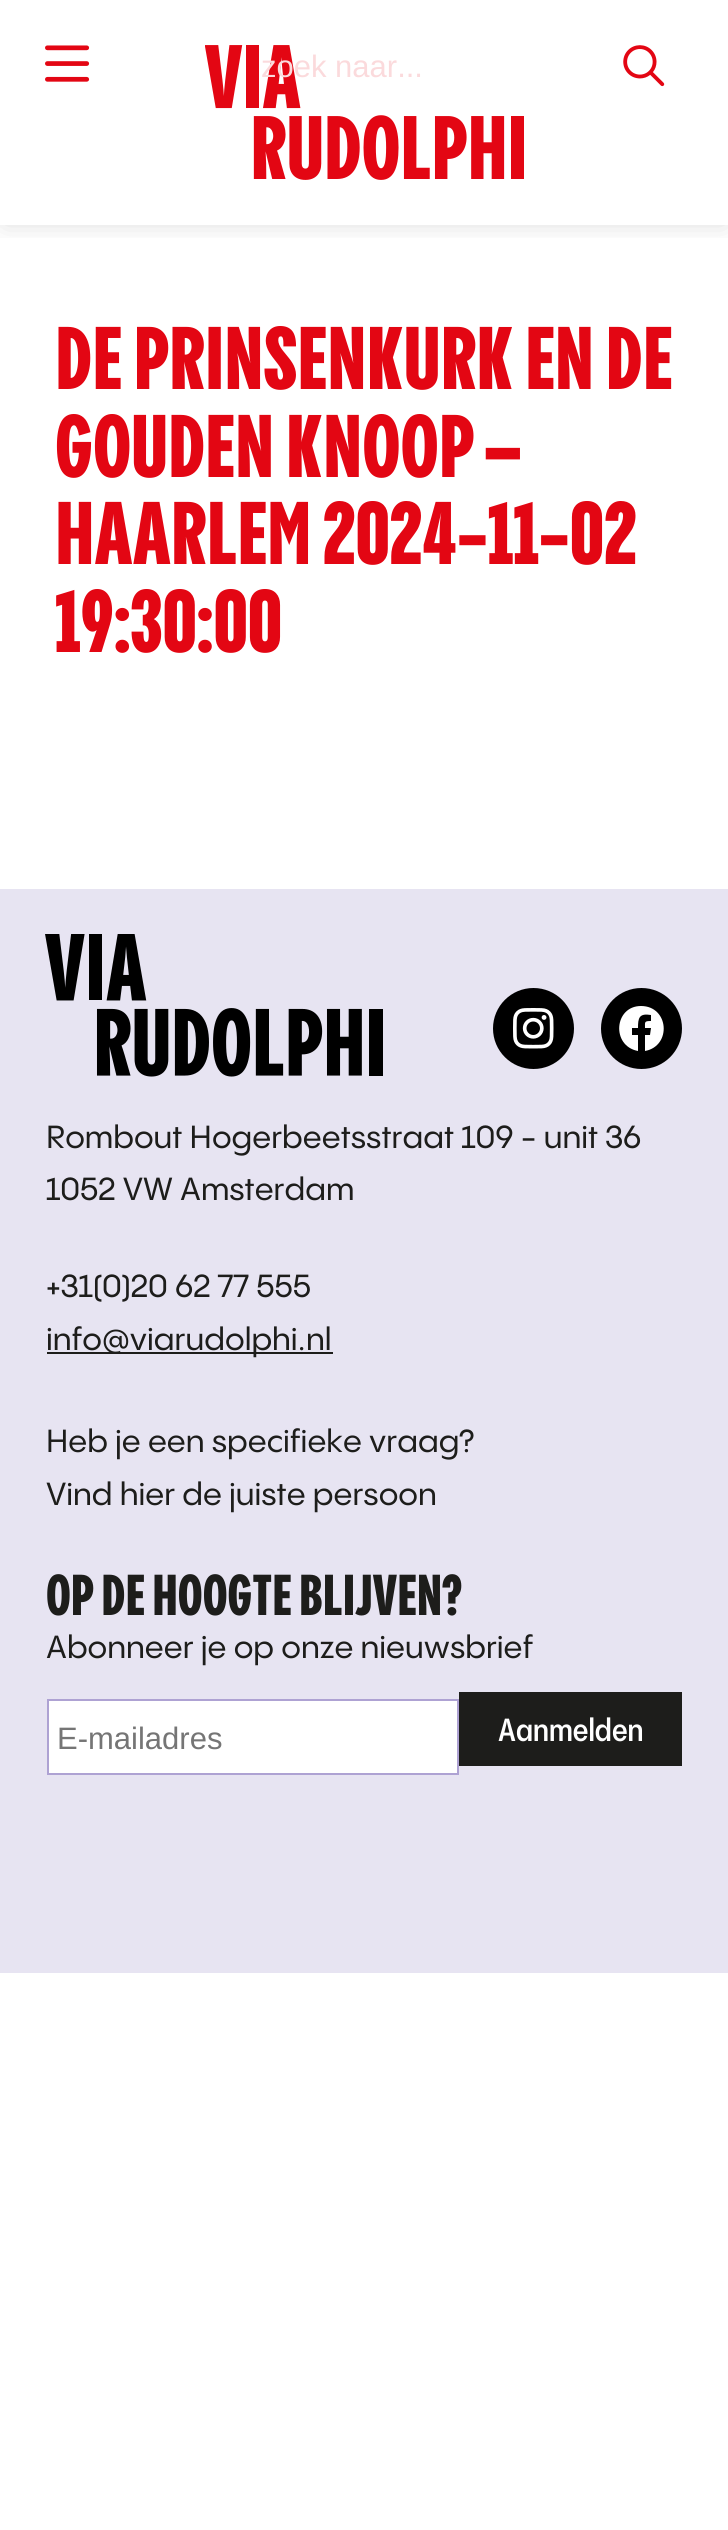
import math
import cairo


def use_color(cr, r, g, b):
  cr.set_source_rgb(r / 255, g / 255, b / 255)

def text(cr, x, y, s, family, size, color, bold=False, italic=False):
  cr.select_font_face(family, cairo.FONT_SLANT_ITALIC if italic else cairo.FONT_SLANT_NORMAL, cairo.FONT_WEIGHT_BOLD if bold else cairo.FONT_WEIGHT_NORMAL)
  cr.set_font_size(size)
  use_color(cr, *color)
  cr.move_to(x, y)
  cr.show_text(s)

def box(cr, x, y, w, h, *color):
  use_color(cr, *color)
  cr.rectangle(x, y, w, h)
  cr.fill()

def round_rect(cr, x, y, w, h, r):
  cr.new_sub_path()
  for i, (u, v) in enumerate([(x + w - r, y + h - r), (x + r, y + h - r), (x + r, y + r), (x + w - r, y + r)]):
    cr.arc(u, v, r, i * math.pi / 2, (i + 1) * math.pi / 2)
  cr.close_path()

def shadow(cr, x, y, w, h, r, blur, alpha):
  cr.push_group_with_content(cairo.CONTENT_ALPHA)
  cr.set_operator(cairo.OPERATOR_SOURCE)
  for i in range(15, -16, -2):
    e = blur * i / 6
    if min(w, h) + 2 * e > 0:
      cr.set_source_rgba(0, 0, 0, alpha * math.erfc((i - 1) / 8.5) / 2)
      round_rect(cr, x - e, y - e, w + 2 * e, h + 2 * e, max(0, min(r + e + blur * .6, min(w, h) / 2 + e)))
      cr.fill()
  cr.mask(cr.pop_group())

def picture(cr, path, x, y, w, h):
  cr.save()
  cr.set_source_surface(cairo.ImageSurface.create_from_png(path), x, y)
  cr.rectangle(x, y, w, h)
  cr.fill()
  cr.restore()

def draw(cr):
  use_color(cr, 255, 255, 255)
  cr.paint()
  cr.save()
  cr.rectangle(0, 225, 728, 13)
  cr.clip()
  use_color(cr, 29, 29, 27)
  shadow(cr, 5, 5, 720, 216, 0, 13.5, 0.2)
  cr.restore()
  picture(cr, "img_01.png", 205, 45, 319, 135)
  picture(cr, "img_02.png", 45, 45, 45, 37)
  picture(cr, "img_03.png", 623, 45, 42, 42)
  box(cr, 0, 889, 728, 1084, 231, 228, 242)
  picture(cr, "img_04.png", 45, 934, 338, 143)
  use_color(cr, 0, 0, 0)
  cr.arc(533.5, 1028.5, 40.5, 0, 2 * math.pi)
  cr.fill()
  picture(cr, "img_05.png", 513, 1008, 41, 41)
  cr.arc(641.5, 1028.5, 40.5, 0, 2 * math.pi)
  cr.fill()
  use_color(cr, 255, 255, 255)
  cr.new_path()
  cr.move_to(641, 1006)
  cr.curve_to(614, 1006, 611, 1046, 638, 1051)
  cr.line_to(638, 1035)
  cr.line_to(632, 1035)
  cr.line_to(632, 1028)
  cr.line_to(638, 1028)
  cr.curve_to(638, 1018, 639, 1013, 651, 1015)
  cr.line_to(651, 1021)
  cr.curve_to(644, 1021, 645, 1022, 645, 1028)
  cr.line_to(651, 1028)
  cr.line_to(650, 1035)
  cr.line_to(645, 1035)
  cr.line_to(645, 1051)
  cr.curve_to(672, 1046, 669, 1006, 641, 1006)
  cr.close_path()
  cr.fill()
  box(cr, 47, 1352, 286, 2, 29, 29, 27)
  use_color(cr, 255, 255, 255)
  cr.rectangle(48, 1700, 410, 74)
  cr.fill_preserve()
  use_color(cr, 174, 162, 211)
  cr.stroke()
  box(cr, 459, 1692, 223, 74, 29, 29, 27)
  text(cr, 261, 77, "zoek naar...", "Liberation Sans", 31, (251, 218, 220))
  text(cr, 55, 389, "DE PRINSENKURK EN DE", "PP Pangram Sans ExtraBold", 87.5, (227, 6, 19))
  text(cr, 55, 477, "GOUDEN KNOOP –", "PP Pangram Sans ExtraBold", 87.5, (227, 6, 19))
  text(cr, 55, 564, "HAARLEM 2024-11-02", "PP Pangram Sans ExtraBold", 87.5, (227, 6, 19))
  text(cr, 55, 652, "19:30:00", "PP Pangram Sans ExtraBold", 87.5, (227, 6, 19))
  text(cr, 46, 1148, "Rombout Hogerbeetsstraat 109 - unit 36", "PP Pangram Sans Medium", 31.5, (29, 29, 27))
  text(cr, 46, 1200, "1052 VW Amsterdam", "PP Pangram Sans Medium", 31.5, (29, 29, 27))
  text(cr, 46, 1297, "+31(0)20 62 77 555", "PP Pangram Sans Medium", 31.5, (29, 29, 27))
  text(cr, 46, 1350, "info@viarudolphi.nl", "PP Pangram Sans Medium", 31.5, (29, 29, 27))
  text(cr, 46, 1452, "Heb je een specifieke vraag?", "PP Pangram Sans Medium", 31.5, (29, 29, 27))
  text(cr, 46, 1505, "Vind hier de juiste persoon", "PP Pangram Sans Medium", 31.5, (29, 29, 27))
  text(cr, 46, 1615, "OP DE HOOGTE BLIJVEN?", "PP Pangram Sans ExtraBold", 56.75, (29, 29, 27))
  text(cr, 46, 1658, "Abonneer je op onze nieuwsbrief", "PP Pangram Sans Medium", 31.5, (29, 29, 27))
  text(cr, 57, 1749, "E-mailadres", "Liberation Sans", 31, (117, 117, 117))
  text(cr, 498, 1741, "Aanmelden", "PP Pangram Sans SemiBold", 31.5, (255, 255, 255))


surface = cairo.ImageSurface(cairo.FORMAT_RGB24, 728, 2530)
cr = cairo.Context(surface)
options = cairo.FontOptions()
options.set_hint_metrics(cairo.HINT_METRICS_OFF)
options.set_hint_style(cairo.HINT_STYLE_NONE)
cr.set_font_options(options)
cr.set_miter_limit(4)
draw(cr)
surface.write_to_png("out.png")
